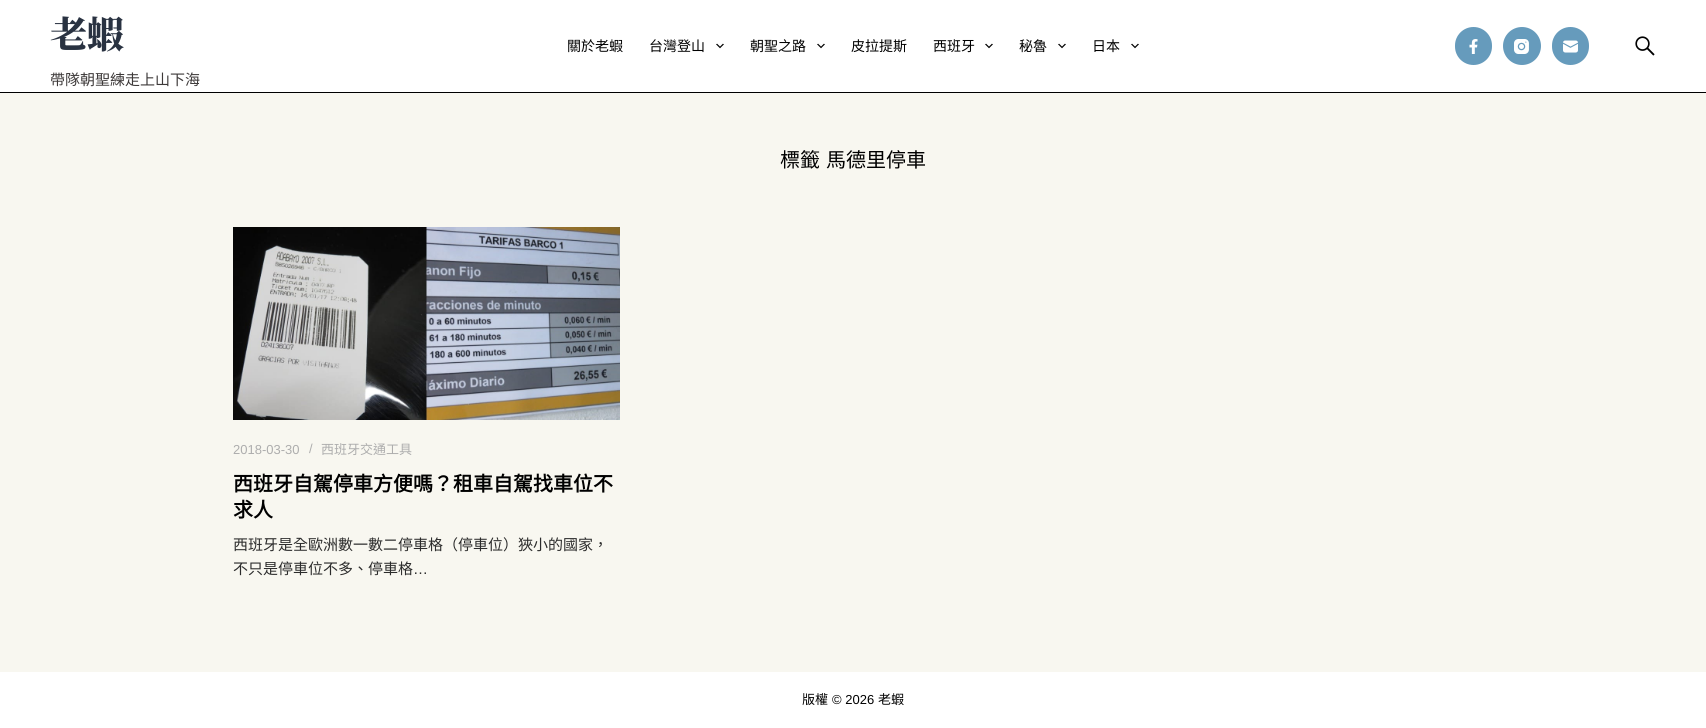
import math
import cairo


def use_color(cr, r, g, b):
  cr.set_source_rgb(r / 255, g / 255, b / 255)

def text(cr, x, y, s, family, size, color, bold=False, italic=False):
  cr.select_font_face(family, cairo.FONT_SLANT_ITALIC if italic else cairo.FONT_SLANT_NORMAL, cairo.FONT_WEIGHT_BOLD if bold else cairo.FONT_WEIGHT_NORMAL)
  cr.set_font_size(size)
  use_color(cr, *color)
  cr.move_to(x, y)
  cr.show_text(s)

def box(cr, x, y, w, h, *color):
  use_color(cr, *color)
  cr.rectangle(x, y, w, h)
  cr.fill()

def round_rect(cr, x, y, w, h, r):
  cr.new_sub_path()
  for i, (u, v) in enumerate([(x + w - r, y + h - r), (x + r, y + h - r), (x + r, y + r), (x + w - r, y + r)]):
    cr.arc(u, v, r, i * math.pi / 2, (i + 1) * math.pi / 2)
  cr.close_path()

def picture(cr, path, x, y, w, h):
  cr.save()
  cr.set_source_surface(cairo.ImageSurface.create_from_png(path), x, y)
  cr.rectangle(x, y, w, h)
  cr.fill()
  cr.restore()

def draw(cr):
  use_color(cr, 248, 247, 240)
  cr.paint()
  box(cr, 0, 0, 1706, 92, 255, 255, 255)
  box(cr, 0, 92, 1706, 1, 0, 0, 0)
  picture(cr, "img_01.png", 716, 43, 8, 6)
  picture(cr, "img_01.png", 817, 43, 8, 6)
  picture(cr, "img_01.png", 985, 43, 8, 6)
  picture(cr, "img_01.png", 1058, 43, 8, 6)
  picture(cr, "img_01.png", 1131, 43, 8, 6)
  use_color(cr, 102, 155, 188)
  round_rect(cr, 1455, 27, 37, 38, 18.5)
  cr.fill()
  picture(cr, "img_02.png", 1469, 39, 9, 15)
  cr.arc(1522, 46, 19, 0, 2 * math.pi)
  cr.fill()
  picture(cr, "img_03.png", 1514, 39, 15, 15)
  round_rect(cr, 1552, 27, 37, 38, 18.5)
  cr.fill()
  picture(cr, "img_04.png", 1563, 40, 15, 13)
  picture(cr, "img_05.png", 1635, 36, 20, 20)
  picture(cr, "img_06.png", 233, 227, 387, 193)
  box(cr, 0, 672, 1706, 56, 255, 255, 255)
  text(cr, 50, 48, "老蝦", "Noto Serif TC Black", 37, (41, 50, 65))
  text(cr, 50, 85, "帶隊朝聖練走上山下海", "Noto Sans CJK TC", 15, (61, 57, 57))
  text(cr, 567, 51, "關於老蝦", "Noto Sans CJK TC", 14, (0, 0, 0))
  text(cr, 649, 51, "台灣登山", "Noto Sans CJK TC", 14, (0, 0, 0))
  text(cr, 750, 51, "朝聖之路", "Noto Sans CJK TC", 14, (0, 0, 0))
  text(cr, 851, 51, "皮拉提斯", "Noto Sans CJK TC", 14, (0, 0, 0))
  text(cr, 933, 51, "西班牙", "Noto Sans CJK TC", 14, (0, 0, 0))
  text(cr, 1019, 51, "秘魯", "Noto Sans CJK TC", 14, (0, 0, 0))
  text(cr, 1092, 51, "日本", "Noto Sans CJK TC", 14, (0, 0, 0))
  text(cr, 780, 167, "標籤", "Noto Sans CJK TC", 20, (0, 0, 0))
  text(cr, 826, 167, "馬德里停車", "Noto Sans CJK TC", 20, (0, 0, 0))
  text(cr, 233, 454, "2018-03-30", "Liberation Sans", 13, (173, 173, 173))
  text(cr, 309, 453, "/", "Liberation Sans", 13, (173, 173, 173))
  text(cr, 321, 454, "西班牙交通工具", "Noto Sans CJK TC", 13, (173, 173, 173))
  text(cr, 233, 491, "西班牙自駕停車方便嗎？租車自駕找車位不", "Noto Sans CJK TC", 20, (0, 0, 0), bold=True)
  text(cr, 233, 517, "求人", "Noto Sans CJK TC", 20, (0, 0, 0), bold=True)
  text(cr, 233, 550, "西班牙是全歐洲數一數二停車格（停車位）狹小的國家，", "Noto Sans CJK TC", 15, (44, 44, 44))
  text(cr, 233, 574, "不只是停車位不多、停車格", "Noto Sans CJK TC", 15, (44, 44, 44))
  text(cr, 413, 574, "…", "Liberation Sans", 15, (44, 44, 44))
  text(cr, 802, 704, "版權", "Noto Sans CJK TC", 13, (0, 0, 0))
  text(cr, 832, 704, "© 2026", "Liberation Sans", 13, (0, 0, 0))
  text(cr, 878, 704, "老蝦", "Noto Sans CJK TC", 13, (0, 0, 0))


surface = cairo.ImageSurface(cairo.FORMAT_RGB24, 1706, 728)
cr = cairo.Context(surface)
options = cairo.FontOptions()
options.set_hint_metrics(cairo.HINT_METRICS_OFF)
options.set_hint_style(cairo.HINT_STYLE_NONE)
cr.set_font_options(options)
cr.set_miter_limit(4)
draw(cr)
surface.write_to_png("out.png")
